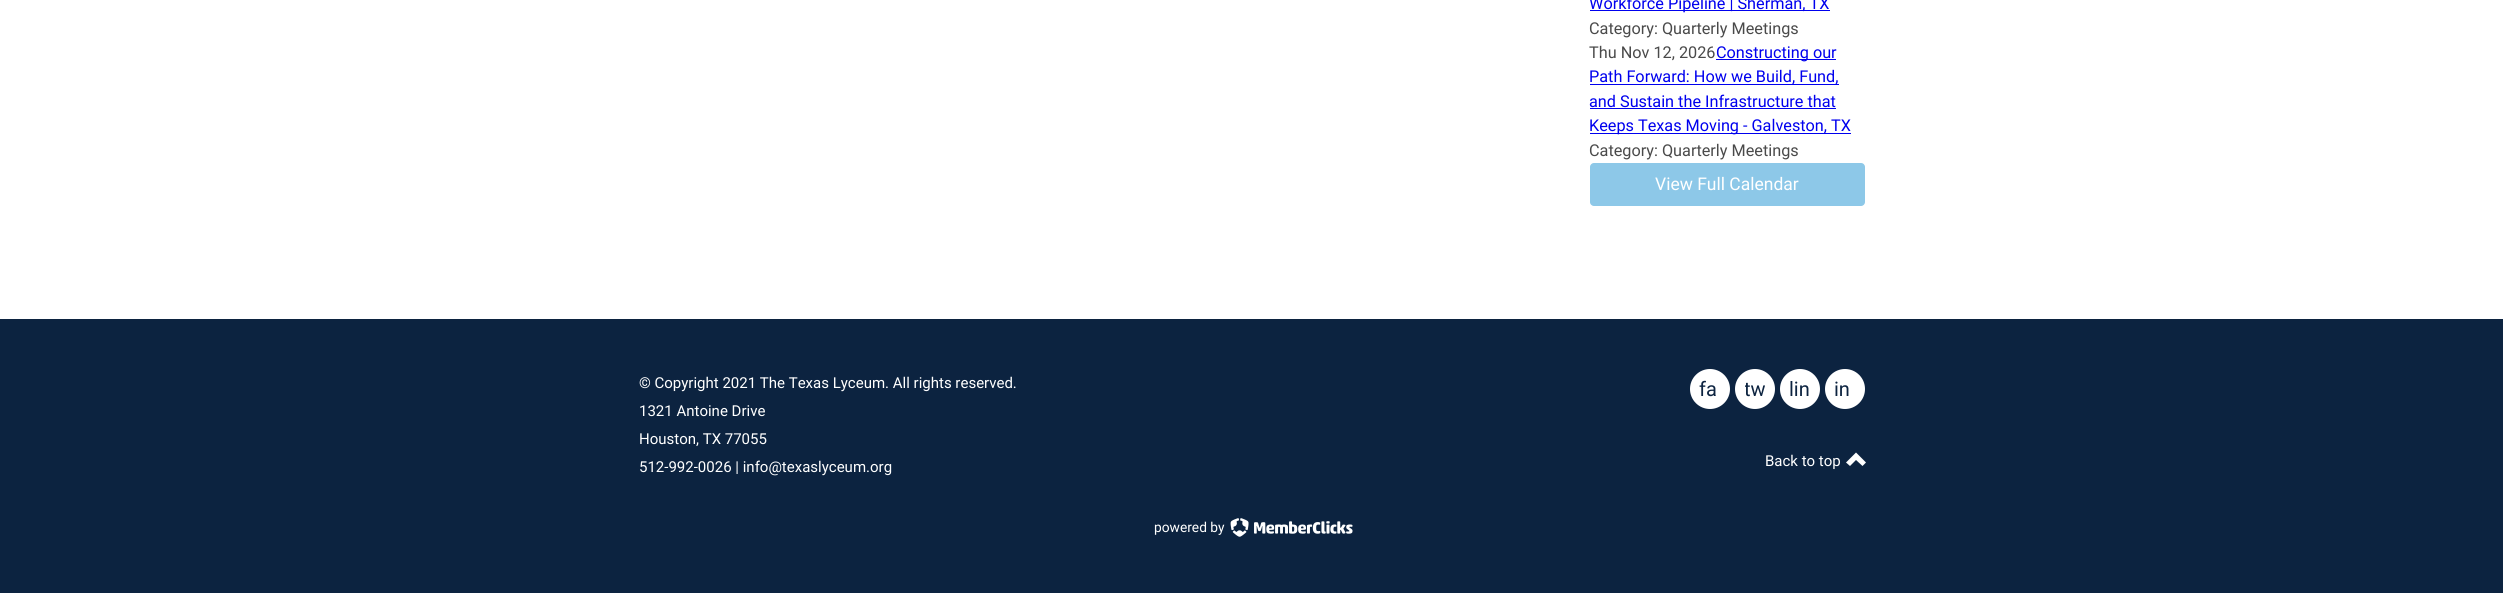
import math
import cairo


def use_color(cr, r, g, b):
  cr.set_source_rgb(r / 255, g / 255, b / 255)

def text(cr, x, y, s, family, size, color, bold=False, italic=False):
  cr.select_font_face(family, cairo.FONT_SLANT_ITALIC if italic else cairo.FONT_SLANT_NORMAL, cairo.FONT_WEIGHT_BOLD if bold else cairo.FONT_WEIGHT_NORMAL)
  cr.set_font_size(size)
  use_color(cr, *color)
  cr.move_to(x, y)
  cr.show_text(s)

def box(cr, x, y, w, h, *color):
  use_color(cr, *color)
  cr.rectangle(x, y, w, h)
  cr.fill()

def round_rect(cr, x, y, w, h, r):
  cr.new_sub_path()
  for i, (u, v) in enumerate([(x + w - r, y + h - r), (x + r, y + h - r), (x + r, y + r), (x + w - r, y + r)]):
    cr.arc(u, v, r, i * math.pi / 2, (i + 1) * math.pi / 2)
  cr.close_path()

def picture(cr, path, x, y, w, h):
  cr.save()
  cr.set_source_surface(cairo.ImageSurface.create_from_png(path), x, y)
  cr.rectangle(x, y, w, h)
  cr.fill()
  cr.restore()

def draw(cr):
  use_color(cr, 255, 255, 255)
  cr.paint()
  box(cr, 1590, 10, 240, 1, 0, 0, 238)
  box(cr, 1716, 59, 120, 1, 0, 0, 238)
  box(cr, 1590, 84, 249, 1, 0, 0, 238)
  box(cr, 1590, 108, 246, 1, 0, 0, 238)
  box(cr, 1590, 133, 261, 1, 0, 0, 238)
  use_color(cr, 141, 200, 232)
  round_rect(cr, 1590, 163, 275, 43, 4)
  cr.fill()
  box(cr, 0, 319, 2503, 274, 12, 35, 64)
  use_color(cr, 255, 255, 255)
  cr.arc(1710, 389, 20, 0, 2 * math.pi)
  cr.fill()
  cr.arc(1755, 389, 20, 0, 2 * math.pi)
  cr.fill()
  cr.arc(1800, 389, 20, 0, 2 * math.pi)
  cr.fill()
  cr.arc(1845, 389, 20, 0, 2 * math.pi)
  cr.fill()
  cr.new_path()
  cr.move_to(1846, 462.5)
  cr.line_to(1850, 466)
  cr.line_to(1856, 460)
  cr.line_to(1862.5, 466)
  cr.line_to(1866, 462.5)
  cr.line_to(1856, 452.5)
  cr.close_path()
  cr.fill()
  picture(cr, "img_01.png", 1230, 518, 19, 19)
  picture(cr, "img_02.png", 1254, 521, 99, 13)
  text(cr, 1589, 9, "Workforce Pipeline | Sherman, TX", "Roboto", 16.25, (0, 0, 238))
  text(cr, 1589, 34, "Category: Quarterly Meetings", "Roboto", 16.25, (74, 74, 74))
  text(cr, 1589, 58, "Thu Nov 12, 2026", "Roboto", 16.25, (74, 74, 74))
  text(cr, 1716, 58, "Constructing our", "Roboto", 16.25, (0, 0, 238))
  text(cr, 1589, 82, "Path Forward: How we Build, Fund,", "Roboto", 16.25, (0, 0, 238))
  text(cr, 1589, 107, "and Sustain the Infrastructure that", "Roboto", 16.25, (0, 0, 238))
  text(cr, 1589, 131, "Keeps Texas Moving - Galveston, TX", "Roboto", 16.25, (0, 0, 238))
  text(cr, 1589, 156, "Category: Quarterly Meetings", "Roboto", 16.25, (74, 74, 74))
  text(cr, 1655, 190, "View Full Calendar", "Roboto", 17.5, (255, 255, 255))
  text(cr, 639, 388, "© Copyright 2021 The Texas Lyceum. All rights reserved.", "Roboto", 15, (255, 255, 255))
  text(cr, 639, 416, "1321 Antoine Drive", "Roboto", 15, (255, 255, 255))
  text(cr, 639, 444, "Houston, TX 77055", "Roboto", 15, (255, 255, 255))
  text(cr, 639, 472, "512-992-0026 | info@texaslyceum.org", "Roboto", 15, (255, 255, 255))
  text(cr, 1699, 396, "fa", "Roboto", 20, (12, 35, 64))
  cr.save()
  cr.rectangle(1745, 379, 20, 20)
  cr.clip()
  text(cr, 1744, 396, "tw", "Roboto", 20, (12, 35, 64))
  cr.restore()
  text(cr, 1789, 396, "lin", "Roboto", 20, (12, 35, 64))
  text(cr, 1834, 396, "in", "Roboto", 20, (12, 35, 64))
  text(cr, 1765, 466, "Back to top", "Roboto", 15, (255, 255, 255))
  text(cr, 1154, 532, "powered by", "Roboto", 13.75, (255, 255, 255))


surface = cairo.ImageSurface(cairo.FORMAT_RGB24, 2503, 593)
cr = cairo.Context(surface)
options = cairo.FontOptions()
options.set_hint_metrics(cairo.HINT_METRICS_OFF)
options.set_hint_style(cairo.HINT_STYLE_NONE)
cr.set_font_options(options)
cr.set_miter_limit(4)
draw(cr)
surface.write_to_png("out.png")
